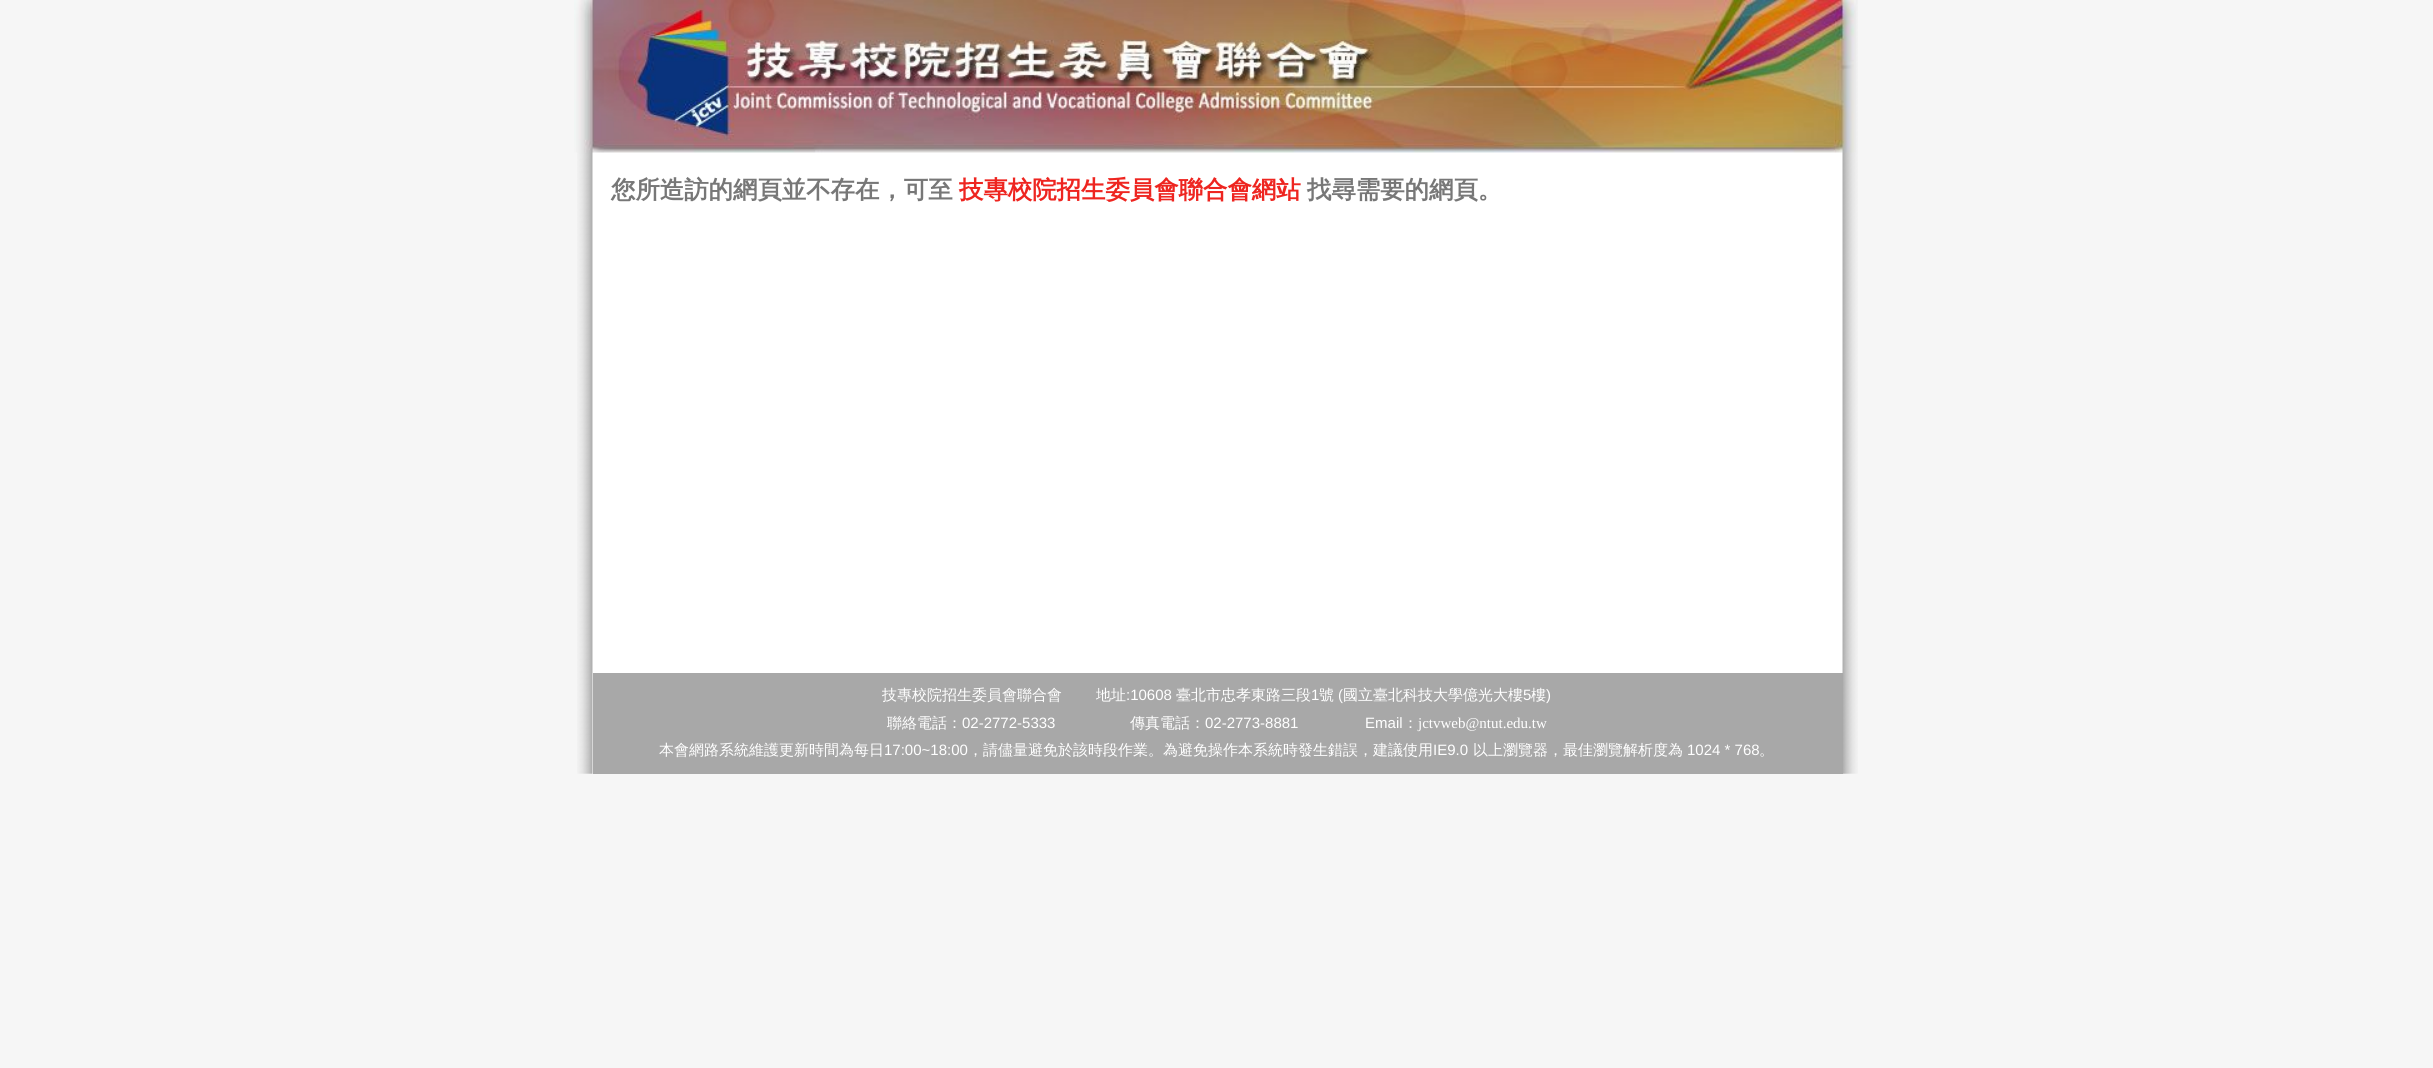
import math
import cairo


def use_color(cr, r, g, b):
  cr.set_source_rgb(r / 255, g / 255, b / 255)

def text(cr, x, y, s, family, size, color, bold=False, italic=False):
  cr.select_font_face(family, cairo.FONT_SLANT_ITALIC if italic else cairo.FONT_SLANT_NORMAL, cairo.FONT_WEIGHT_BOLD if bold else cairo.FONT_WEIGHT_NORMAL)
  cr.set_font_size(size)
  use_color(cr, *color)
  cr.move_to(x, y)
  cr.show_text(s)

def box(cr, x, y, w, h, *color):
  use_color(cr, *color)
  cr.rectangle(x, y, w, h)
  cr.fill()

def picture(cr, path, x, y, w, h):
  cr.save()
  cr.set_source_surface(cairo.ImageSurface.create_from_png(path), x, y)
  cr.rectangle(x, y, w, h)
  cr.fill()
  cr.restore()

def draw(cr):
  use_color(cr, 246, 246, 246)
  cr.paint()
  picture(cr, "img_01.png", 577, 0, 1281, 774)
  picture(cr, "img_02.png", 574, 0, 1282, 153)
  box(cr, 593, 673, 1250, 101, 168, 168, 168)
  text(cr, 611, 198, "您所造訪的網頁並不存在，可至", "WenQuanYi Zen Hei", 24.4, (119, 119, 119), bold=True)
  text(cr, 959, 198, "技專校院招生委員會聯合會網站", "WenQuanYi Zen Hei", 24.4, (238, 37, 32), bold=True)
  text(cr, 1307, 198, "找尋需要的網頁。", "WenQuanYi Zen Hei", 24.4, (119, 119, 119), bold=True)
  text(cr, 882, 700, "技專校院招生委員會聯合會", "WenQuanYi Zen Hei Medium", 15, (255, 255, 255))
  text(cr, 1096, 700, "地址", "WenQuanYi Zen Hei Medium", 15, (255, 255, 255))
  text(cr, 1126, 700, ":10608", "Liberation Sans", 15, (255, 255, 255))
  text(cr, 1176, 700, "臺北市忠孝東路三段", "WenQuanYi Zen Hei Medium", 15, (255, 255, 255))
  text(cr, 1311, 700, "1", "Liberation Sans", 15, (255, 255, 255))
  text(cr, 1319, 700, "號", "WenQuanYi Zen Hei Medium", 15, (255, 255, 255))
  text(cr, 1338, 700, "(", "Liberation Sans", 15, (255, 255, 255))
  text(cr, 1343, 700, "國立臺北科技大學億光大樓", "WenQuanYi Zen Hei Medium", 15, (255, 255, 255))
  text(cr, 1523, 700, "5", "Liberation Sans", 15, (255, 255, 255))
  text(cr, 1531, 700, "樓", "WenQuanYi Zen Hei Medium", 15, (255, 255, 255))
  text(cr, 1546, 700, ")", "Liberation Sans", 15, (255, 255, 255))
  text(cr, 887, 728, "聯絡電話：", "WenQuanYi Zen Hei Medium", 15, (255, 255, 255))
  text(cr, 962, 728, "02-2772-5333", "Liberation Sans", 15, (255, 255, 255))
  text(cr, 1130, 728, "傳真電話：", "WenQuanYi Zen Hei Medium", 15, (255, 255, 255))
  text(cr, 1205, 728, "02-2773-8881                Email", "Liberation Sans", 15, (255, 255, 255))
  text(cr, 1403, 728, "：", "WenQuanYi Zen Hei Medium", 15, (255, 255, 255))
  text(cr, 1418, 728, "jctvweb@ntut.edu.tw", "Liberation Serif", 15, (255, 255, 255))
  text(cr, 659, 755, "本會網路系統維護更新時間為每日", "WenQuanYi Zen Hei Medium", 15, (255, 255, 255))
  text(cr, 884, 755, "17:00~18:00", "Liberation Sans", 15, (255, 255, 255))
  text(cr, 968, 755, "，請儘量避免於該時段作業。為避免操作本系統時發生錯誤，建議使用", "WenQuanYi Zen Hei Medium", 15, (255, 255, 255))
  text(cr, 1433, 755, "IE9.0", "Liberation Sans", 15, (255, 255, 255))
  text(cr, 1473, 755, "以上瀏覽器，最佳瀏覽解析度為", "WenQuanYi Zen Hei Medium", 15, (255, 255, 255))
  text(cr, 1687, 755, "1024 * 768", "Liberation Sans", 15, (255, 255, 255))
  text(cr, 1759, 755, "。", "WenQuanYi Zen Hei Medium", 15, (255, 255, 255))


surface = cairo.ImageSurface(cairo.FORMAT_RGB24, 2433, 1068)
cr = cairo.Context(surface)
options = cairo.FontOptions()
options.set_hint_metrics(cairo.HINT_METRICS_OFF)
options.set_hint_style(cairo.HINT_STYLE_NONE)
cr.set_font_options(options)
cr.set_miter_limit(4)
draw(cr)
surface.write_to_png("out.png")
